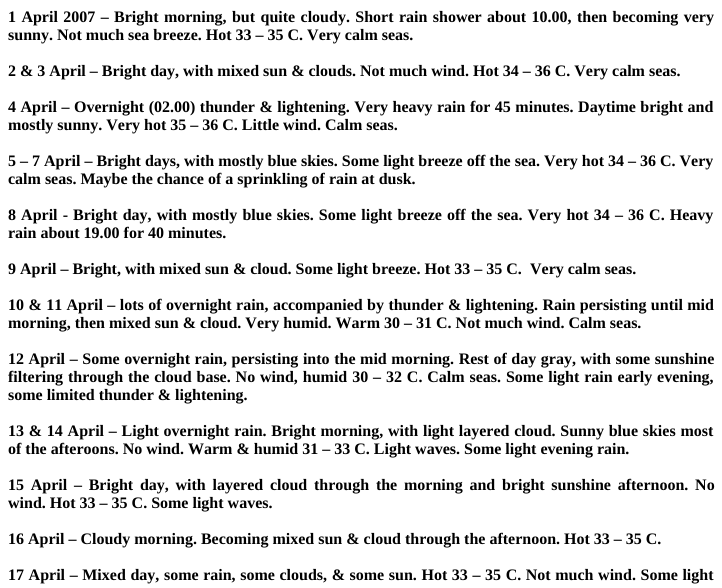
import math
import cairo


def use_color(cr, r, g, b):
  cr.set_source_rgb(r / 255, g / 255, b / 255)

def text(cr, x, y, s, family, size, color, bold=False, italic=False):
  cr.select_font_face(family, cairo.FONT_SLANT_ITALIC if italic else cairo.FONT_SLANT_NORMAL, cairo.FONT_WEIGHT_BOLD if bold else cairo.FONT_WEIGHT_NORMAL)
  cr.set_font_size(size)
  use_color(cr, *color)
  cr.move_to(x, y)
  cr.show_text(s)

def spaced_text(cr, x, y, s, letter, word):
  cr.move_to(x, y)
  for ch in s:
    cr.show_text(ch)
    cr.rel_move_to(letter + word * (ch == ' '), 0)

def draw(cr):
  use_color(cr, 255, 255, 255)
  cr.paint()
  cr.select_font_face("Liberation Serif", cairo.FONT_SLANT_NORMAL, cairo.FONT_WEIGHT_BOLD)
  cr.set_font_size(16)
  use_color(cr, 0, 0, 0)
  spaced_text(cr, 8, 22, "1 April 2007 – Bright morning, but quite cloudy. Short rain shower about 10.00, then becoming very", 0, 1.4)
  text(cr, 8, 40, "sunny. Not much sea breeze. Hot 33 – 35 C. Very calm seas.", "Liberation Serif", 16, (0, 0, 0), bold=True)
  text(cr, 8, 76, "2 & 3 April – Bright day, with mixed sun & clouds. Not much wind. Hot 34 – 36 C. Very calm seas.", "Liberation Serif", 16, (0, 0, 0), bold=True)
  spaced_text(cr, 8, 112, "4 April – Overnight (02.00) thunder & lightening. Very heavy rain for 45 minutes. Daytime bright and", 0, 0.5)
  text(cr, 8, 130, "mostly sunny. Very hot 35 – 36 C. Little wind. Calm seas.", "Liberation Serif", 16, (0, 0, 0), bold=True)
  text(cr, 8, 166, "5 – 7 April – Bright days, with mostly blue skies. Some light breeze off the sea. Very hot 34 – 36 C. Very", "Liberation Serif", 16, (0, 0, 0), bold=True)
  text(cr, 8, 184, "calm seas. Maybe the chance of a sprinkling of rain at dusk.", "Liberation Serif", 16, (0, 0, 0), bold=True)
  spaced_text(cr, 8, 220, "8 April - Bright day, with mostly blue skies. Some light breeze off the sea. Very hot 34 – 36 C. Heavy", 0, 1.1)
  text(cr, 8, 238, "rain about 19.00 for 40 minutes.", "Liberation Serif", 16, (0, 0, 0), bold=True)
  text(cr, 8, 274, "9 April – Bright, with mixed sun & cloud. Some light breeze. Hot 33 – 35 C.", "Liberation Serif", 16, (0, 0, 0), bold=True)
  text(cr, 530, 274, "Very calm seas.", "Liberation Serif", 16, (0, 0, 0), bold=True)
  spaced_text(cr, 8, 310, "10 & 11 April – lots of overnight rain, accompanied by thunder & lightening. Rain persisting until mid", 0, 0.4)
  text(cr, 8, 328, "morning, then mixed sun & cloud. Very humid. Warm 30 – 31 C. Not much wind. Calm seas.", "Liberation Serif", 16, (0, 0, 0), bold=True)
  spaced_text(cr, 8, 364, "12 April – Some overnight rain, persisting into the mid morning. Rest of day gray, with some sunshine", 0, 0.6)
  spaced_text(cr, 8, 382, "filtering through the cloud base. No wind, humid 30 – 32 C. Calm seas. Some light rain early evening,", 0, 0.9)
  text(cr, 8, 400, "some limited thunder & lightening.", "Liberation Serif", 16, (0, 0, 0), bold=True)
  spaced_text(cr, 8, 436, "13 & 14 April – Light overnight rain. Bright morning, with light layered cloud. Sunny blue skies most", 0, 0.75)
  text(cr, 8, 454, "of the afteroons. No wind. Warm & humid 31 – 33 C. Light waves. Some light evening rain.", "Liberation Serif", 16, (0, 0, 0), bold=True)
  spaced_text(cr, 8, 490, "15 April – Bright day, with layered cloud through the morning and bright sunshine afternoon. No", 0, 2.75)
  text(cr, 8, 508, "wind. Hot 33 – 35 C. Some light waves.", "Liberation Serif", 16, (0, 0, 0), bold=True)
  text(cr, 8, 544, "16 April – Cloudy morning. Becoming mixed sun & cloud through the afternoon. Hot 33 – 35 C.", "Liberation Serif", 16, (0, 0, 0), bold=True)
  spaced_text(cr, 8, 580, "17 April – Mixed day, some rain, some clouds, & some sun. Hot 33 – 35 C. Not much wind. Some light", 0, 0.6)


surface = cairo.ImageSurface(cairo.FORMAT_RGB24, 722, 588)
cr = cairo.Context(surface)
options = cairo.FontOptions()
options.set_hint_metrics(cairo.HINT_METRICS_OFF)
options.set_hint_style(cairo.HINT_STYLE_NONE)
cr.set_font_options(options)
cr.set_miter_limit(4)
draw(cr)
surface.write_to_png("out.png")
